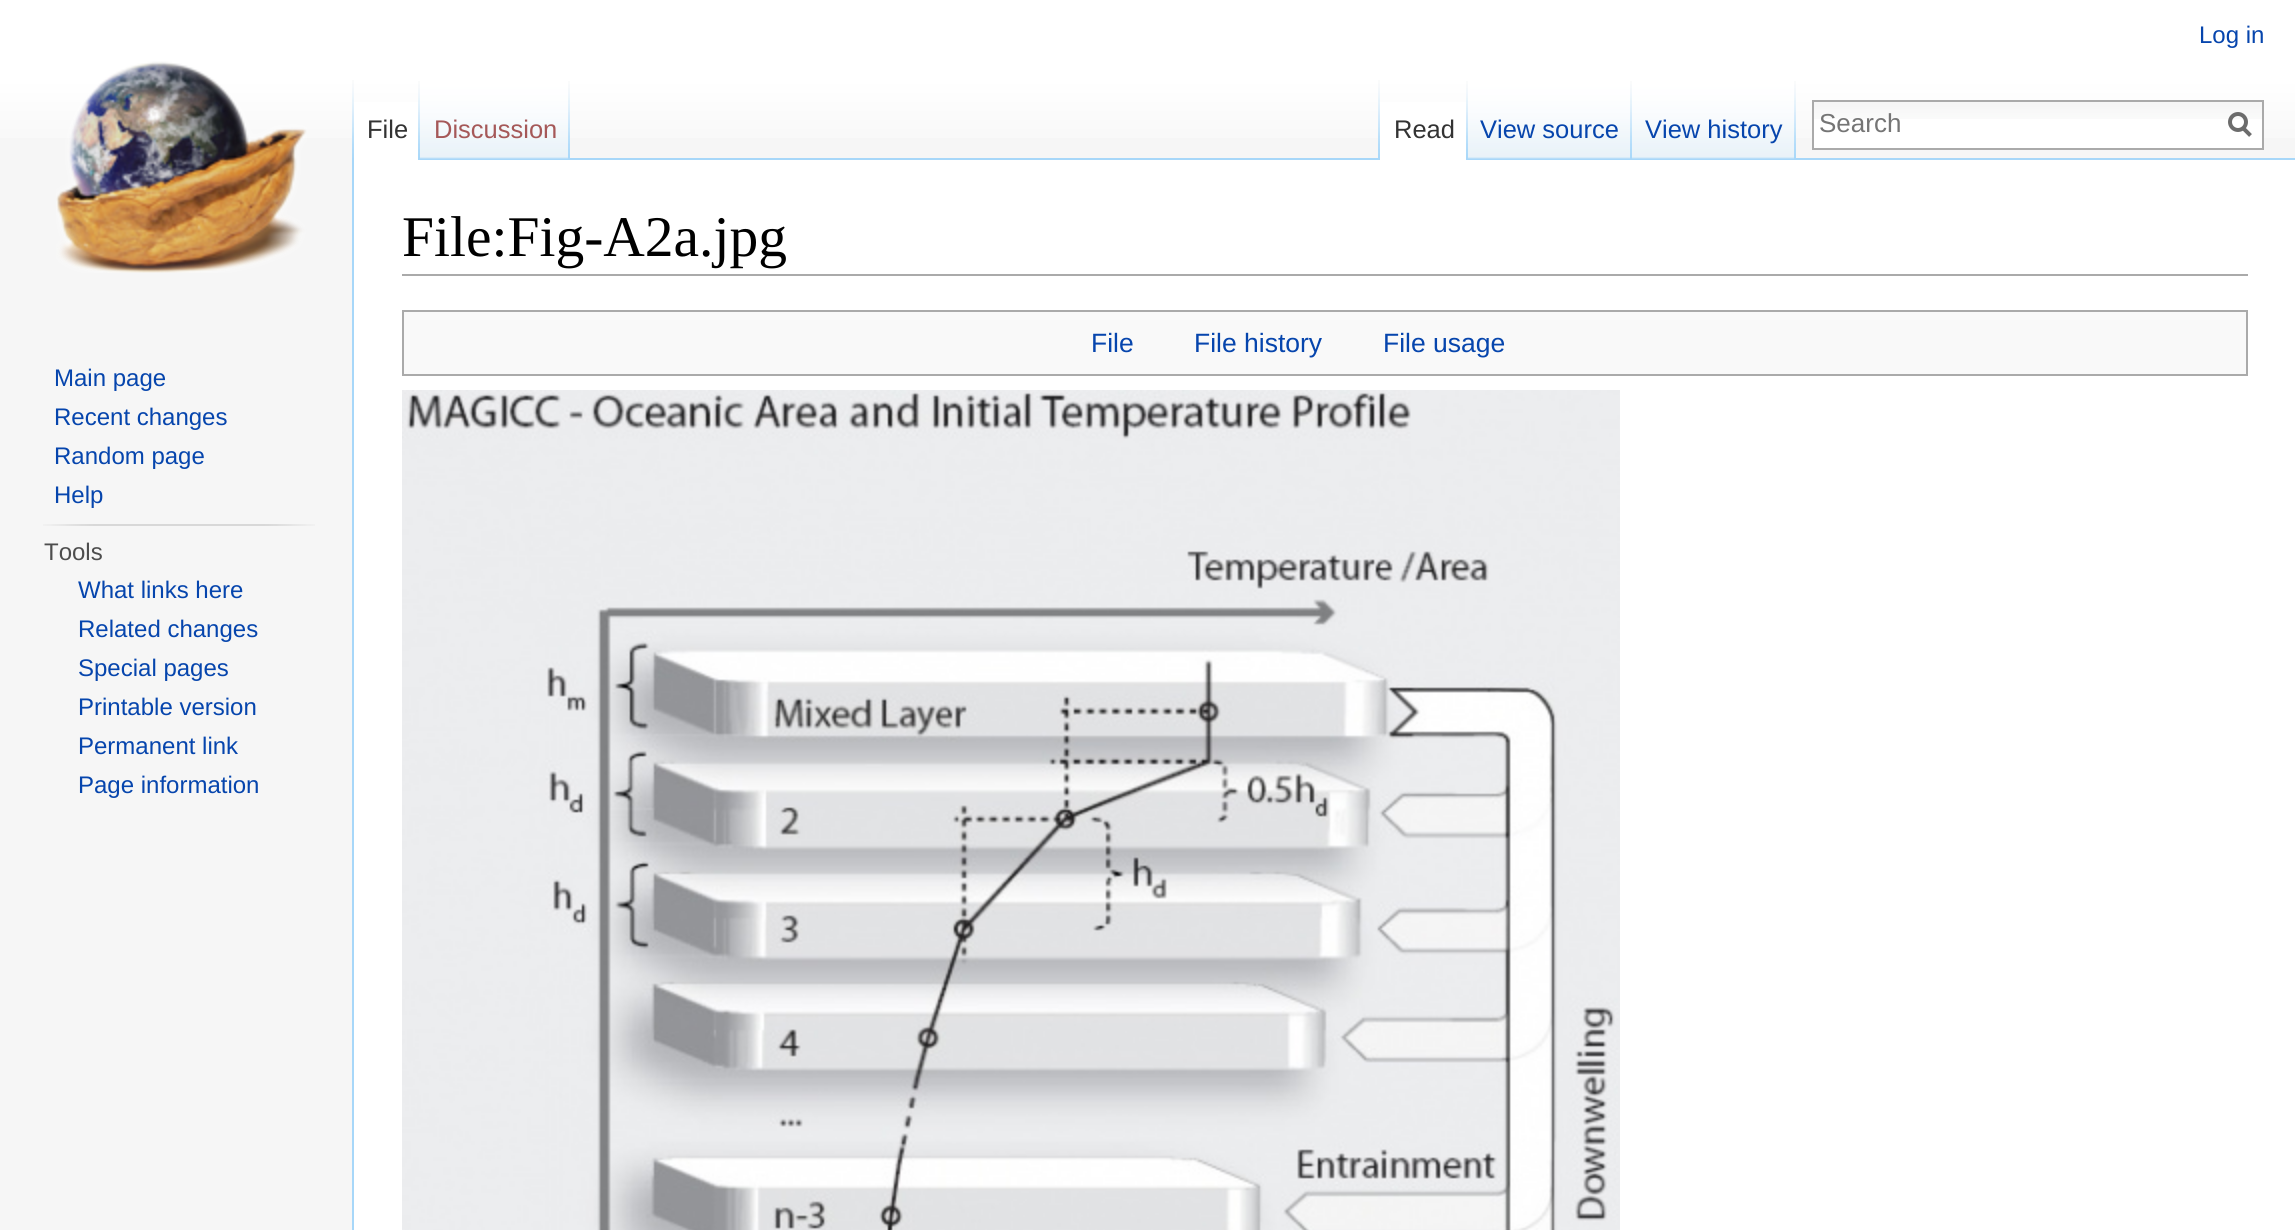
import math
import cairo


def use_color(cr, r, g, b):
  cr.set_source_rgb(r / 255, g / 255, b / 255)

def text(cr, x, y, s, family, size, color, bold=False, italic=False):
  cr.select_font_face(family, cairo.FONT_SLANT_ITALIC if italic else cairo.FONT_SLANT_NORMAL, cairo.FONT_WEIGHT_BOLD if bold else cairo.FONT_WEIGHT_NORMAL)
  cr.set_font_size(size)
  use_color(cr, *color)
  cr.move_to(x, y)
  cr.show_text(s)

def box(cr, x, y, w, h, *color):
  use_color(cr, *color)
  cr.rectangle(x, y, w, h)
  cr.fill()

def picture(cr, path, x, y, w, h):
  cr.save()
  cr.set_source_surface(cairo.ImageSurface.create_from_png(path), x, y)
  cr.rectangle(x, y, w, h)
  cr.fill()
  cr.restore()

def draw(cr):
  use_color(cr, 246, 246, 246)
  cr.paint()
  gradient = cairo.LinearGradient(1148, 0, 1148, 160)
  gradient.add_color_stop_rgba(0.5, 1, 1, 1, 1)
  gradient.add_color_stop_rgba(1, 0.965, 0.965, 0.965, 1)
  cr.set_source(gradient)
  cr.rectangle(0, 0, 2295, 138)
  cr.fill()
  picture(cr, "img_01.png", 352, 80, 2, 78)
  box(cr, 354, 102, 66, 58, 255, 255, 255)
  picture(cr, "img_02.png", 418, 81, 2, 79)
  picture(cr, "img_03.png", 420, 80, 150, 80)
  picture(cr, "img_04.png", 568, 81, 2, 78)
  picture(cr, "img_01.png", 1378, 80, 2, 78)
  box(cr, 570, 158, 1725, 2, 167, 215, 249)
  box(cr, 1380, 102, 88, 58, 255, 255, 255)
  picture(cr, "img_02.png", 1466, 81, 2, 79)
  picture(cr, "img_05.png", 1468, 80, 164, 80)
  picture(cr, "img_04.png", 1630, 81, 2, 78)
  picture(cr, "img_05.png", 1632, 80, 164, 80)
  picture(cr, "img_04.png", 1794, 81, 2, 78)
  box(cr, 1814, 119, 448, 29, 255, 255, 255)
  picture(cr, "img_06.png", 1814, 102, 448, 17)
  cr.rectangle(1813, 101, 450, 48)
  use_color(cr, 170, 170, 170)
  cr.stroke()
  cr.new_path()
  cr.move_to(2250.5, 135.5)
  cr.line_to(2242.5, 127.5)
  use_color(cr, 108, 108, 108)
  cr.set_line_width(4)
  cr.stroke()
  cr.arc(2238, 122, 8, 0, 2 * math.pi)
  cr.stroke()
  picture(cr, "img_07.png", 56, 61, 251, 212)
  picture(cr, "img_08.png", 43, 524, 272, 2)
  box(cr, 354, 160, 1941, 1070, 255, 255, 255)
  box(cr, 352, 158, 2, 1072, 167, 215, 249)
  box(cr, 402, 274, 1846, 2, 170, 170, 170)
  use_color(cr, 249, 249, 249)
  cr.rectangle(403, 311, 1844, 64)
  cr.fill_preserve()
  use_color(cr, 170, 170, 170)
  cr.set_line_width(2)
  cr.stroke()
  picture(cr, "img_09.png", 402, 390, 1218, 840)
  text(cr, 2199, 43, "Log in", "Liberation Sans", 24, (6, 69, 173))
  text(cr, 367, 138, "File", "Liberation Sans", 25.5, (51, 51, 51))
  text(cr, 434, 138, "Discussion", "Liberation Sans", 25.5, (165, 88, 88))
  text(cr, 1394, 138, "Read", "Liberation Sans", 25.5, (51, 51, 51))
  text(cr, 1480, 138, "View source", "Liberation Sans", 25.5, (6, 69, 173))
  text(cr, 1645, 138, "View history", "Liberation Sans", 25.5, (6, 69, 173))
  text(cr, 1819, 132, "Search", "Liberation Sans", 26, (117, 117, 117))
  text(cr, 54, 386, "Main page", "Liberation Sans", 24, (6, 69, 173))
  text(cr, 54, 425, "Recent changes", "Liberation Sans", 24, (6, 69, 173))
  text(cr, 54, 464, "Random page", "Liberation Sans", 24, (6, 69, 173))
  text(cr, 54, 503, "Help", "Liberation Sans", 24, (6, 69, 173))
  text(cr, 44, 560, "Tools", "Liberation Sans", 24, (77, 77, 77))
  text(cr, 78, 598, "What links here", "Liberation Sans", 24, (6, 69, 173))
  text(cr, 78, 637, "Related changes", "Liberation Sans", 24, (6, 69, 173))
  text(cr, 78, 676, "Special pages", "Liberation Sans", 24, (6, 69, 173))
  text(cr, 78, 715, "Printable version", "Liberation Sans", 24, (6, 69, 173))
  text(cr, 78, 754, "Permanent link", "Liberation Sans", 24, (6, 69, 173))
  text(cr, 78, 793, "Page information", "Liberation Sans", 24, (6, 69, 173))
  text(cr, 402, 256, "File:Fig-A2a.jpg", "Liberation Serif", 57.5, (0, 0, 0))
  text(cr, 1091, 352, "File", "Liberation Sans", 26.5, (6, 69, 173))
  text(cr, 1194, 352, "File history", "Liberation Sans", 26.5, (6, 69, 173))
  text(cr, 1383, 352, "File usage", "Liberation Sans", 26.5, (6, 69, 173))


surface = cairo.ImageSurface(cairo.FORMAT_RGB24, 2295, 1230)
cr = cairo.Context(surface)
options = cairo.FontOptions()
options.set_hint_metrics(cairo.HINT_METRICS_OFF)
options.set_hint_style(cairo.HINT_STYLE_NONE)
cr.set_font_options(options)
cr.set_miter_limit(4)
draw(cr)
surface.write_to_png("out.png")
